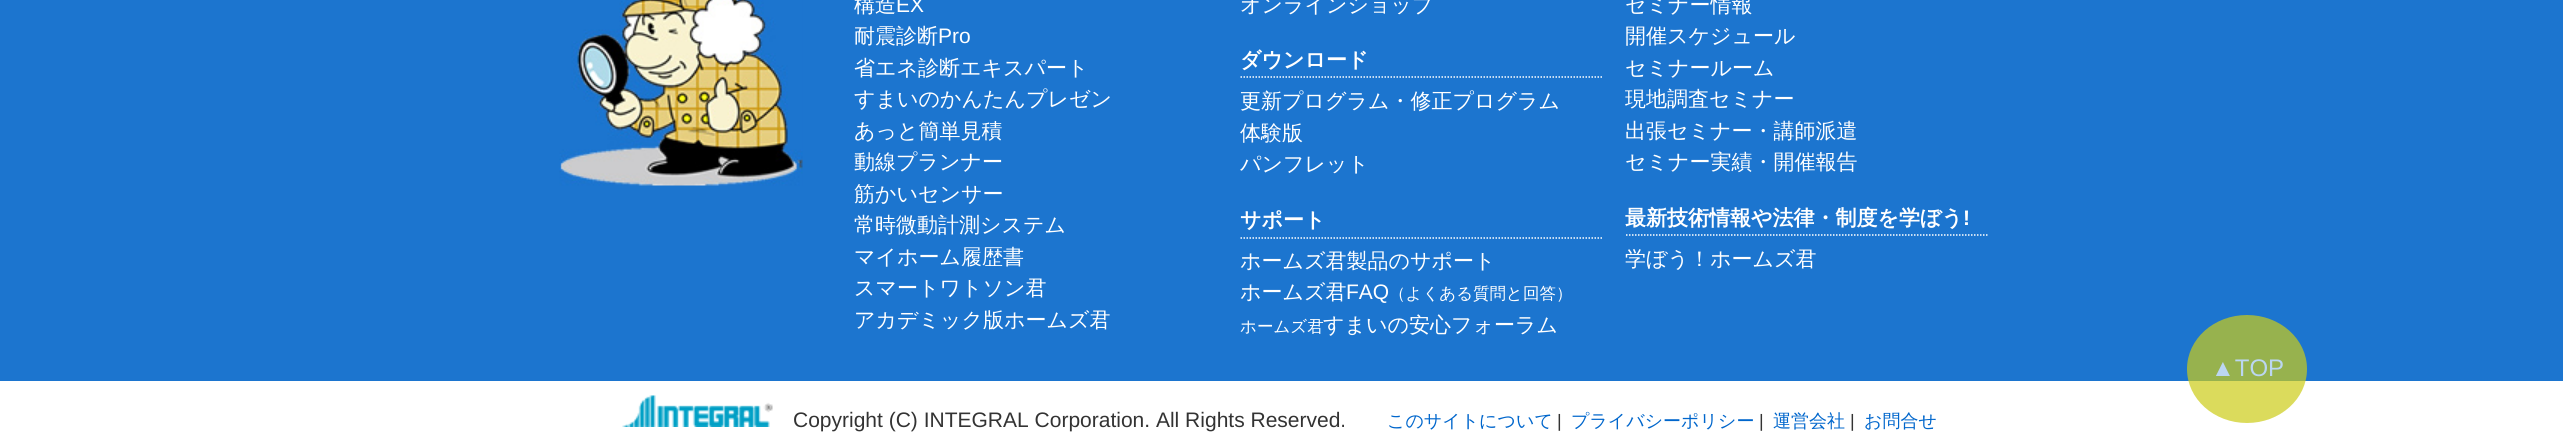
import math
import cairo


def use_color(cr, r, g, b):
  cr.set_source_rgb(r / 255, g / 255, b / 255)

def text(cr, x, y, s, family, size, color, bold=False, italic=False):
  cr.select_font_face(family, cairo.FONT_SLANT_ITALIC if italic else cairo.FONT_SLANT_NORMAL, cairo.FONT_WEIGHT_BOLD if bold else cairo.FONT_WEIGHT_NORMAL)
  cr.set_font_size(size)
  use_color(cr, *color)
  cr.move_to(x, y)
  cr.show_text(s)

def box(cr, x, y, w, h, *color):
  use_color(cr, *color)
  cr.rectangle(x, y, w, h)
  cr.fill()

def picture(cr, path, x, y, w, h):
  cr.save()
  cr.set_source_surface(cairo.ImageSurface.create_from_png(path), x, y)
  cr.rectangle(x, y, w, h)
  cr.fill()
  cr.restore()

def draw(cr):
  use_color(cr, 255, 255, 255)
  cr.paint()
  box(cr, 0, 0, 2563, 381, 28, 117, 207)
  picture(cr, "img_01.png", 559, 0, 244, 186)
  cr.new_path()
  cr.move_to(1240.5, 77)
  cr.line_to(1603.5, 77)
  use_color(cr, 255, 255, 255)
  cr.set_line_width(1.5)
  cr.set_dash([1.5, 1.5])
  cr.stroke()
  cr.new_path()
  cr.move_to(1240.5, 238)
  cr.line_to(1603.5, 238)
  cr.stroke()
  cr.new_path()
  cr.move_to(1626, 235)
  cr.line_to(1989, 235)
  cr.stroke()
  cr.set_source_rgba(0.8, 0.8, 0.094, 0.7)
  cr.new_path()
  cr.move_to(2247, 315)
  cr.curve_to(2280, 315, 2307, 339, 2307, 369)
  cr.curve_to(2307, 399, 2280, 423, 2247, 423)
  cr.curve_to(2214, 423, 2187, 399, 2187, 369)
  cr.curve_to(2187, 339, 2214, 315, 2247, 315)
  cr.close_path()
  cr.fill()
  picture(cr, "img_02.png", 622, 395, 151, 32)
  text(cr, 854, 12, "構造", "WenQuanYi Zen Hei Medium", 21, (255, 255, 255))
  text(cr, 896, 12, "EX", "Liberation Sans", 21, (255, 255, 255))
  text(cr, 854, 43, "耐震診断", "WenQuanYi Zen Hei Medium", 21, (255, 255, 255))
  text(cr, 938, 43, "Pro", "Liberation Sans", 21, (255, 255, 255))
  text(cr, 854, 75, "省エネ診断エキスパート", "WenQuanYi Zen Hei Medium", 21, (255, 255, 255))
  text(cr, 854, 106, "すまいのかんたんプレゼン", "WenQuanYi Zen Hei Medium", 21, (255, 255, 255))
  text(cr, 854, 138, "あっと簡単見積", "WenQuanYi Zen Hei Medium", 21, (255, 255, 255))
  text(cr, 854, 169, "動線プランナー", "WenQuanYi Zen Hei Medium", 21, (255, 255, 255))
  text(cr, 854, 201, "筋かいセンサー", "WenQuanYi Zen Hei Medium", 21, (255, 255, 255))
  text(cr, 854, 232, "常時微動計測システム", "WenQuanYi Zen Hei Medium", 21, (255, 255, 255))
  text(cr, 854, 264, "マイホーム履歴書", "WenQuanYi Zen Hei Medium", 21, (255, 255, 255))
  text(cr, 854, 295, "スマートワトソン君", "WenQuanYi Zen Hei Medium", 21, (255, 255, 255))
  text(cr, 854, 327, "アカデミック版ホームズ君", "WenQuanYi Zen Hei Medium", 21, (255, 255, 255))
  text(cr, 1240, 12, "オンラインショップ", "WenQuanYi Zen Hei Medium", 21, (255, 255, 255))
  text(cr, 1240, 67, "ダウンロード", "WenQuanYi Zen Hei", 21, (255, 255, 255), bold=True)
  text(cr, 1240, 108, "更新プログラム・修正プログラム", "WenQuanYi Zen Hei Medium", 21, (255, 255, 255))
  text(cr, 1240, 140, "体験版", "WenQuanYi Zen Hei Medium", 21, (255, 255, 255))
  text(cr, 1240, 171, "パンフレット", "WenQuanYi Zen Hei Medium", 21, (255, 255, 255))
  text(cr, 1240, 227, "サポート", "WenQuanYi Zen Hei", 21, (255, 255, 255), bold=True)
  text(cr, 1240, 268, "ホームズ君製品のサポート", "WenQuanYi Zen Hei Medium", 21, (255, 255, 255))
  text(cr, 1240, 299, "ホームズ君", "WenQuanYi Zen Hei Medium", 21, (255, 255, 255))
  text(cr, 1346, 299, "FAQ", "Liberation Sans", 21, (255, 255, 255))
  text(cr, 1389, 299, "（よくある質問と回答）", "WenQuanYi Zen Hei Medium", 16.5, (255, 255, 255))
  text(cr, 1240, 332, "ホームズ君", "WenQuanYi Zen Hei Medium", 16.5, (255, 255, 255))
  text(cr, 1323, 332, "すまいの安心フォーラム", "WenQuanYi Zen Hei Medium", 21, (255, 255, 255))
  text(cr, 1625, 12, "セミナー情報", "WenQuanYi Zen Hei Medium", 21, (255, 255, 255))
  text(cr, 1625, 43, "開催スケジュール", "WenQuanYi Zen Hei Medium", 21, (255, 255, 255))
  text(cr, 1625, 75, "セミナールーム", "WenQuanYi Zen Hei Medium", 21, (255, 255, 255))
  text(cr, 1625, 106, "現地調査セミナー", "WenQuanYi Zen Hei Medium", 21, (255, 255, 255))
  text(cr, 1625, 138, "出張セミナー・講師派遣", "WenQuanYi Zen Hei Medium", 21, (255, 255, 255))
  text(cr, 1625, 169, "セミナー実績・開催報告", "WenQuanYi Zen Hei Medium", 21, (255, 255, 255))
  text(cr, 1625, 225, "最新技術情報や法律・制度を学ぼう", "WenQuanYi Zen Hei", 21, (255, 255, 255), bold=True)
  text(cr, 1963, 225, "!", "Liberation Sans", 21, (255, 255, 255), bold=True)
  text(cr, 1625, 266, "学ぼう！ホームズ君", "WenQuanYi Zen Hei Medium", 21, (255, 255, 255))
  text(cr, 2211, 376, "▲TOP", "Liberation Sans", 24, (187, 214, 241))
  text(cr, 793, 427, "Copyright (C) INTEGRAL Corporation. All Rights Reserved.", "Liberation Sans", 21, (51, 51, 51))
  text(cr, 1387, 427, "このサイトについて", "WenQuanYi Zen Hei Medium", 18, (0, 102, 204))
  text(cr, 1557, 427, "|", "Liberation Sans", 18, (51, 51, 51))
  text(cr, 1571, 427, "プライバシーポリシー", "WenQuanYi Zen Hei Medium", 18, (0, 102, 204))
  text(cr, 1759, 427, "|", "Liberation Sans", 18, (51, 51, 51))
  text(cr, 1773, 427, "運営会社", "WenQuanYi Zen Hei Medium", 18, (0, 102, 204))
  text(cr, 1850, 427, "|", "Liberation Sans", 18, (51, 51, 51))
  text(cr, 1864, 427, "お問合せ", "WenQuanYi Zen Hei Medium", 18, (0, 102, 204))


surface = cairo.ImageSurface(cairo.FORMAT_RGB24, 2563, 438)
cr = cairo.Context(surface)
options = cairo.FontOptions()
options.set_hint_metrics(cairo.HINT_METRICS_OFF)
options.set_hint_style(cairo.HINT_STYLE_NONE)
cr.set_font_options(options)
cr.set_miter_limit(4)
draw(cr)
surface.write_to_png("out.png")
